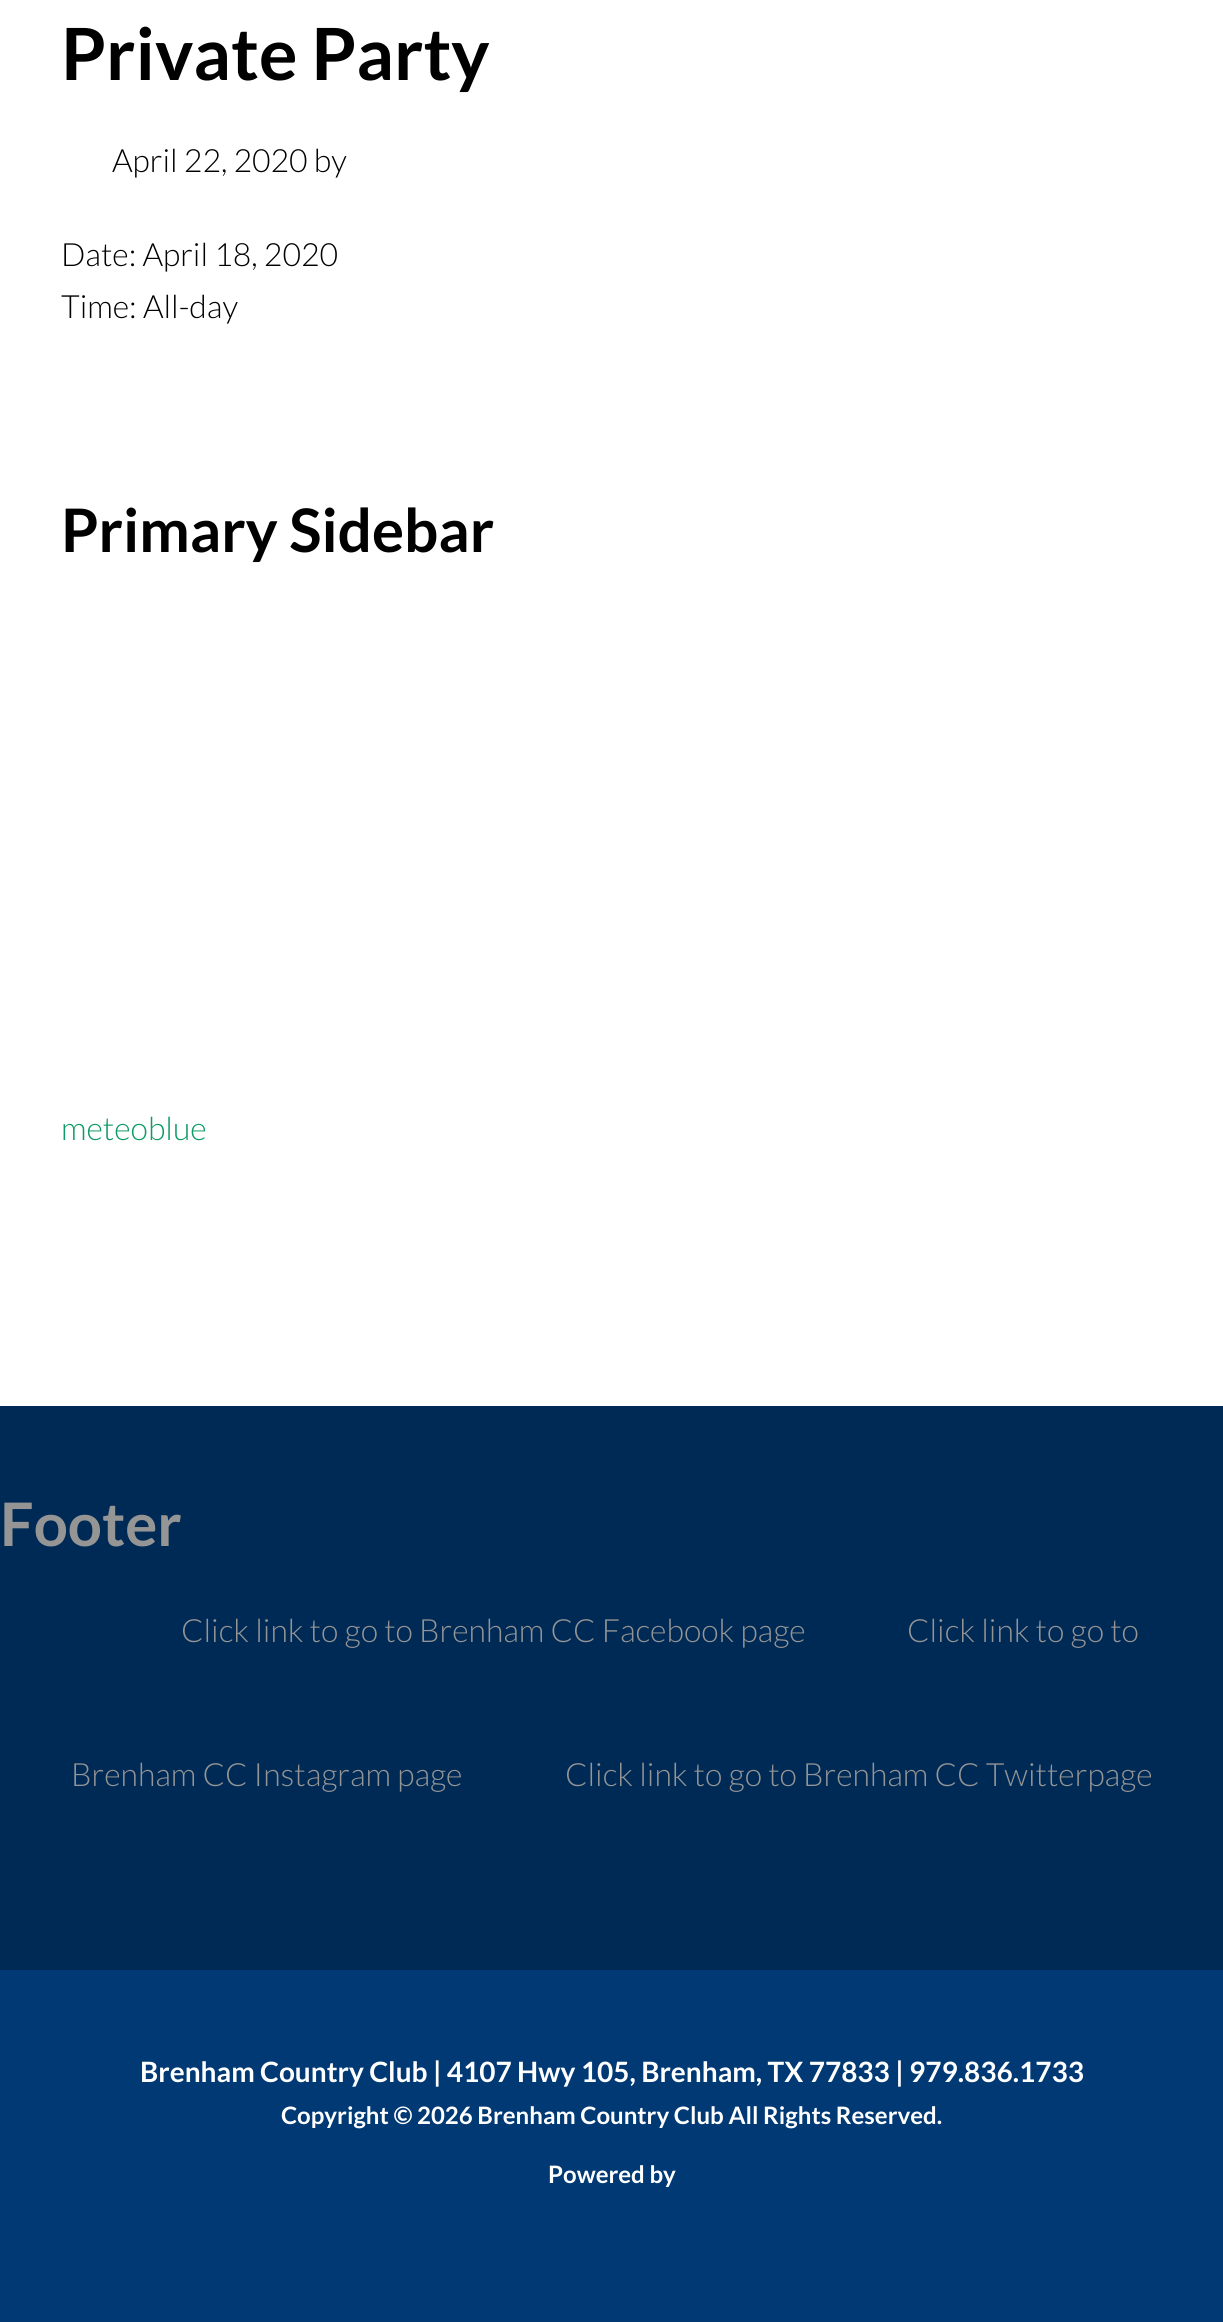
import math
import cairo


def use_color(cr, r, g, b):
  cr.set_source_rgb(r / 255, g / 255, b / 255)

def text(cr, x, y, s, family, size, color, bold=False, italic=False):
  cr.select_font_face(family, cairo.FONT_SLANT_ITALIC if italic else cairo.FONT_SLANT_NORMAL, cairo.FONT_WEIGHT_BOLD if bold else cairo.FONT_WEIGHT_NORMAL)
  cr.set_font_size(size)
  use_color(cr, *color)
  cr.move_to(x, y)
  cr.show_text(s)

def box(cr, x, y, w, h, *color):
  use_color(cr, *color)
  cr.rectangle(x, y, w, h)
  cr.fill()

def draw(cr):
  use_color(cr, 255, 255, 255)
  cr.paint()
  box(cr, 0, 1406, 1223, 564, 0, 42, 86)
  box(cr, 0, 1970, 1223, 352, 0, 57, 116)
  text(cr, 61, 80, "Private Party", "Lato", 72, (0, 0, 0), bold=True)
  text(cr, 112, 172, "April 22, 2020 by", "Lato Light", 32, (0, 0, 0))
  text(cr, 61, 266, "Date: April 18, 2020", "Lato Light", 32, (0, 0, 0))
  text(cr, 61, 318, "Time: All-day", "Lato Light", 32, (0, 0, 0))
  text(cr, 61, 552, "Primary Sidebar", "Lato", 60, (0, 0, 0), bold=True)
  text(cr, 61, 1140, "meteoblue", "Lato Light", 32, (14, 154, 101))
  text(cr, 0, 1546, "Footer", "Lato", 60, (149, 149, 149), bold=True)
  text(cr, 181, 1642, "Click link to go to Brenham CC Facebook page", "Lato Light", 32, (149, 149, 149))
  text(cr, 907, 1642, "Click link to go to", "Lato Light", 32, (149, 149, 149))
  text(cr, 71, 1786, "Brenham CC Instagram page", "Lato Light", 32, (149, 149, 149))
  text(cr, 565, 1786, "Click link to go to Brenham CC Twitterpage", "Lato Light", 32, (149, 149, 149))
  text(cr, 140, 2082, "Brenham Country Club | 4107 Hwy 105, Brenham, TX 77833 | 979.836.1733", "Lato", 28, (255, 255, 255), bold=True)
  text(cr, 281, 2124, "Copyright © 2026 Brenham Country Club All Rights Reserved.", "Lato", 24, (255, 255, 255), bold=True)
  text(cr, 548, 2183, "Powered by", "Lato", 24, (255, 255, 255), bold=True)


surface = cairo.ImageSurface(cairo.FORMAT_RGB24, 1223, 2322)
cr = cairo.Context(surface)
options = cairo.FontOptions()
options.set_hint_metrics(cairo.HINT_METRICS_OFF)
options.set_hint_style(cairo.HINT_STYLE_NONE)
cr.set_font_options(options)
cr.set_miter_limit(4)
draw(cr)
surface.write_to_png("out.png")
